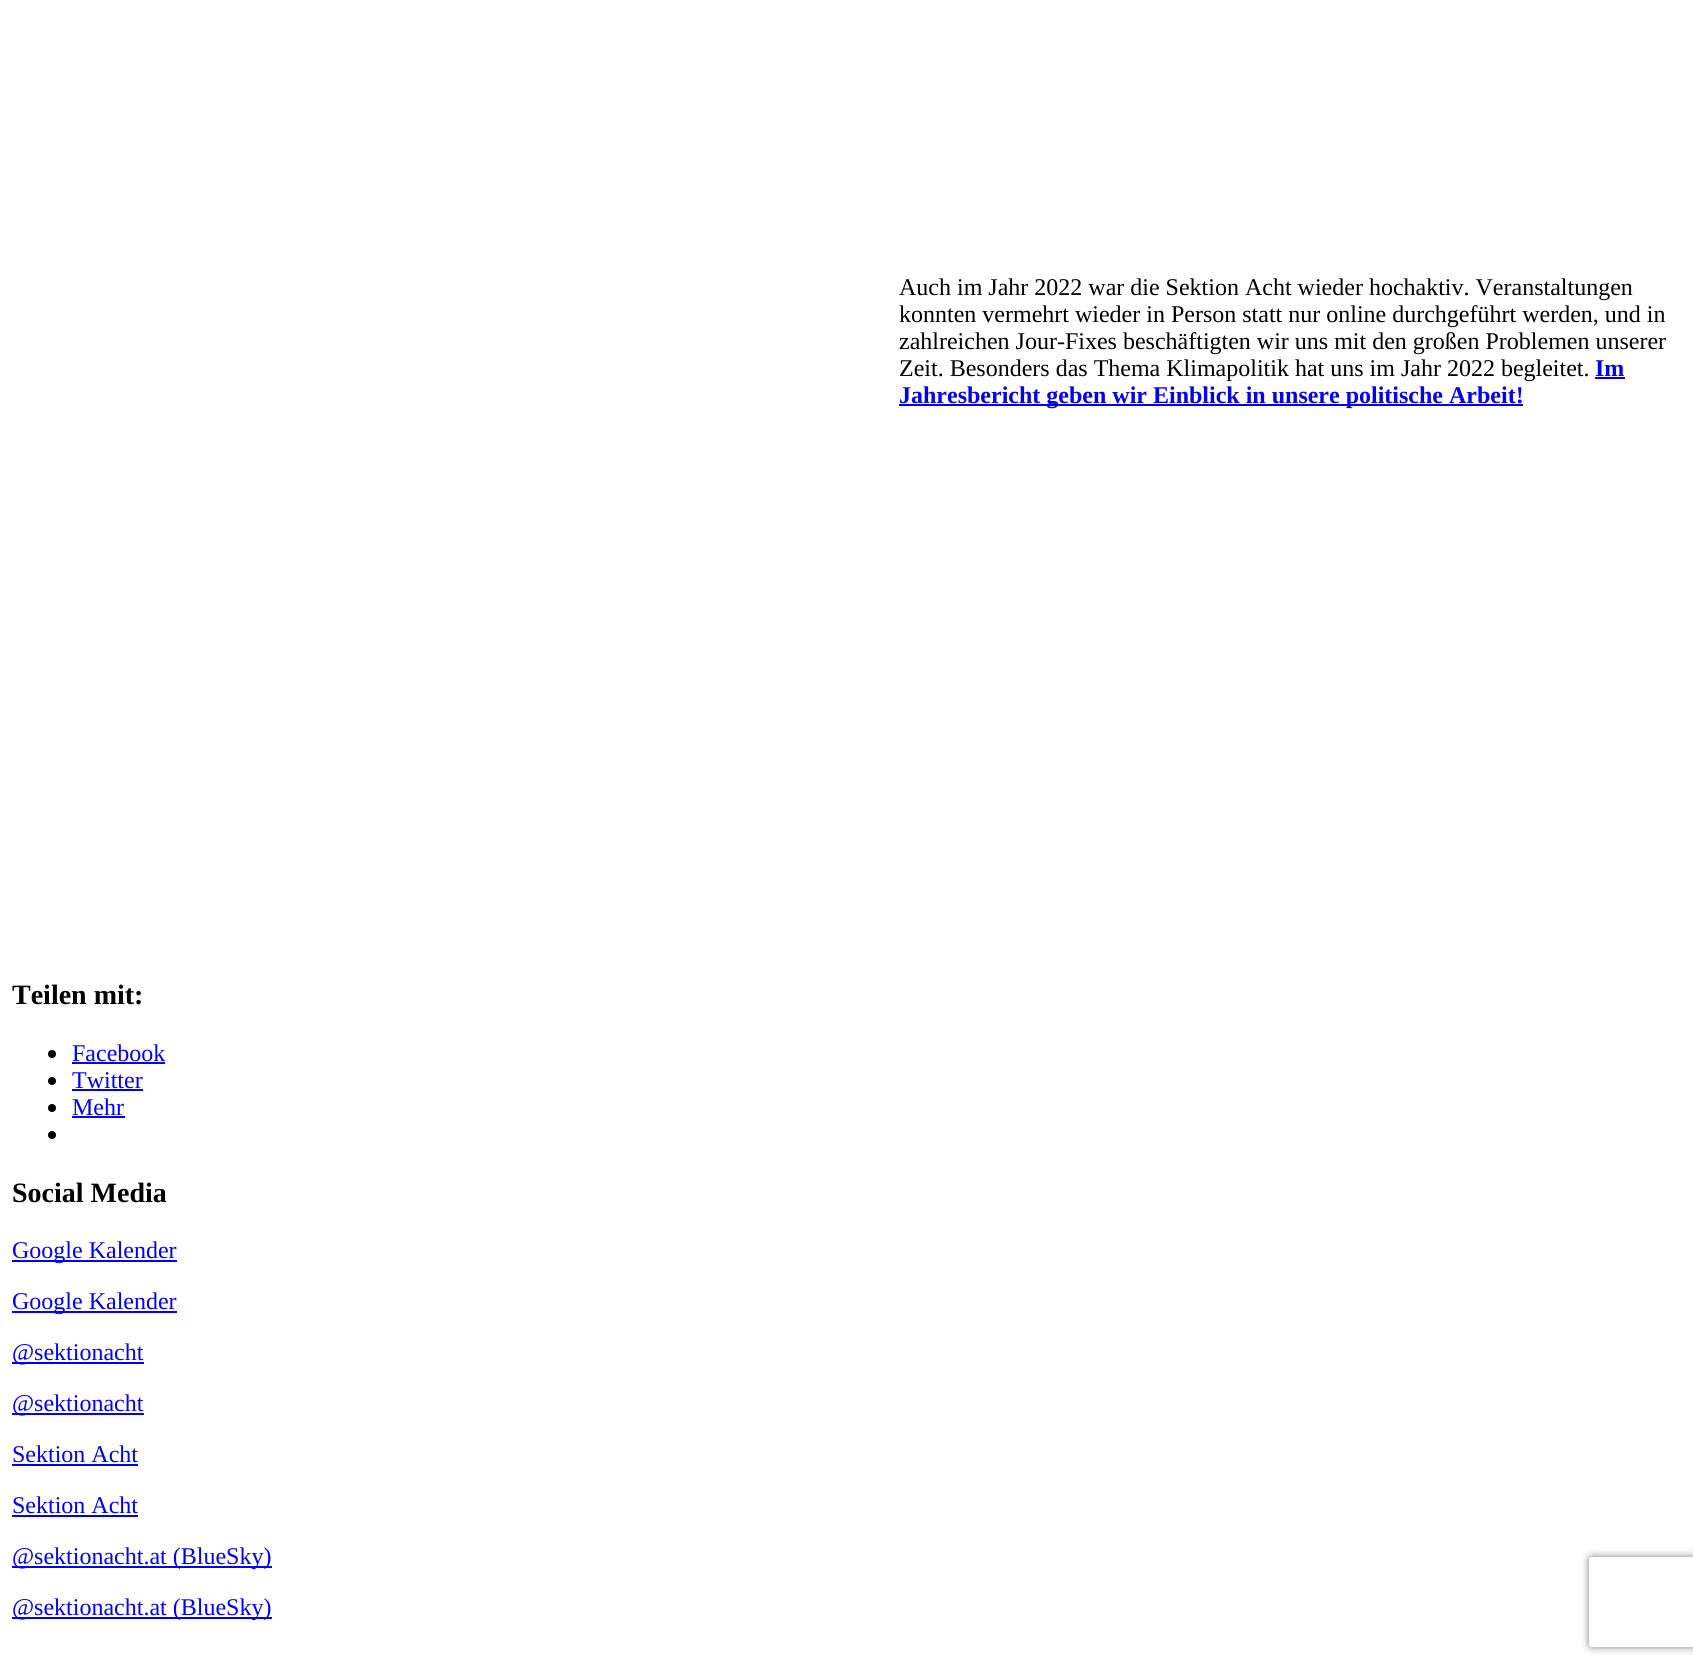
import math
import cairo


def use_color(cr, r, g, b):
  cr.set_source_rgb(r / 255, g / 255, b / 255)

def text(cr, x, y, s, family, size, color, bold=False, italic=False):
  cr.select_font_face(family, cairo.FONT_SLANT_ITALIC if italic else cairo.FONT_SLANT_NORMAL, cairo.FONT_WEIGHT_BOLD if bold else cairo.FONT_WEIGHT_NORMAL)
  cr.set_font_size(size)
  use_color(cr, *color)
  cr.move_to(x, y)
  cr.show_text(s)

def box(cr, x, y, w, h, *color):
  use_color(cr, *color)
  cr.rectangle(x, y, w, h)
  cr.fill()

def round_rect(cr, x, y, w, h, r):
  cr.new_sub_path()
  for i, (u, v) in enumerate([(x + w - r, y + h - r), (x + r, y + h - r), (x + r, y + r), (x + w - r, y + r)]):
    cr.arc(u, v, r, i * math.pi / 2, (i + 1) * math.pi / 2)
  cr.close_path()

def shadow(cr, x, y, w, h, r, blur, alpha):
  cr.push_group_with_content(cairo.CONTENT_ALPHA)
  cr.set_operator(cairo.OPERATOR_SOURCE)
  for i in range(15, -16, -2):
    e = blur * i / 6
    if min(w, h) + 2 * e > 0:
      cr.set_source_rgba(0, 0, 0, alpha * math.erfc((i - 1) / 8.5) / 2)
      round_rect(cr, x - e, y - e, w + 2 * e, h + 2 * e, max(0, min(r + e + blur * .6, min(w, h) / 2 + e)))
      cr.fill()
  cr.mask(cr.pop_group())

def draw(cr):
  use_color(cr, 255, 255, 255)
  cr.paint()
  box(cr, 1595, 377, 30, 2, 0, 0, 238)
  box(cr, 899, 404, 624, 2, 0, 0, 238)
  use_color(cr, 0, 0, 0)
  cr.arc(52, 1054, 4, 0, 2 * math.pi)
  cr.fill()
  box(cr, 72, 1062, 93, 2, 0, 0, 238)
  use_color(cr, 0, 0, 0)
  cr.arc(52, 1081, 4, 0, 2 * math.pi)
  cr.fill()
  box(cr, 72, 1089, 71, 2, 0, 0, 238)
  use_color(cr, 0, 0, 0)
  cr.arc(52, 1108, 4, 0, 2 * math.pi)
  cr.fill()
  box(cr, 72, 1116, 53, 2, 0, 0, 238)
  use_color(cr, 0, 0, 0)
  cr.arc(52, 1135, 4, 0, 2 * math.pi)
  cr.fill()
  box(cr, 12, 1260, 165, 2, 0, 0, 238)
  box(cr, 12, 1311, 165, 2, 0, 0, 238)
  box(cr, 12, 1362, 132, 2, 0, 0, 238)
  box(cr, 12, 1413, 132, 2, 0, 0, 238)
  box(cr, 12, 1464, 126, 2, 0, 0, 238)
  box(cr, 12, 1515, 126, 2, 0, 0, 238)
  box(cr, 12, 1566, 260, 2, 0, 0, 238)
  box(cr, 12, 1617, 260, 2, 0, 0, 238)
  cr.save()
  cr.set_fill_rule(cairo.FILL_RULE_EVEN_ODD)
  cr.new_path()
  cr.move_to(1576, 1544)
  cr.line_to(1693, 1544)
  cr.line_to(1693, 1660)
  cr.line_to(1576, 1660)
  cr.close_path()
  cr.move_to(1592, 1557)
  cr.line_to(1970, 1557)
  cr.curve_to(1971.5, 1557, 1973, 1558.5, 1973, 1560)
  cr.line_to(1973, 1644)
  cr.curve_to(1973, 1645.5, 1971.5, 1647, 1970, 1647)
  cr.line_to(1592, 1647)
  cr.curve_to(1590.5, 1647, 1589, 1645.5, 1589, 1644)
  cr.line_to(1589, 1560)
  cr.curve_to(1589, 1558.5, 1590.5, 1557, 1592, 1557)
  cr.close_path()
  cr.clip()
  use_color(cr, 128, 128, 128)
  shadow(cr, 1589, 1557, 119, 90, 3, 4, 1)
  cr.restore()
  text(cr, 899, 295, "Auch im Jahr 2022 war die Sektion Acht wieder hochaktiv. Veranstaltungen", "Liberation Serif", 24, (0, 0, 0))
  text(cr, 899, 322, "konnten vermehrt wieder in Person statt nur online durchgeführt werden, und in", "Liberation Serif", 24, (0, 0, 0))
  text(cr, 899, 349, "zahlreichen Jour-Fixes beschäftigten wir uns mit den großen Problemen unserer", "Liberation Serif", 24, (0, 0, 0))
  text(cr, 899, 376, "Zeit. Besonders das Thema Klimapolitik hat uns im Jahr 2022 begleitet.", "Liberation Serif", 24, (0, 0, 0))
  text(cr, 1595, 376, "Im", "Liberation Serif", 24, (0, 0, 238), bold=True)
  text(cr, 899, 403, "Jahresbericht geben wir Einblick in unsere politische Arbeit!", "Liberation Serif", 24, (0, 0, 238), bold=True)
  text(cr, 12, 1004, "Teilen mit:", "Liberation Serif", 28, (0, 0, 0), bold=True)
  text(cr, 72, 1061, "Facebook", "Liberation Serif", 24, (0, 0, 238))
  text(cr, 72, 1088, "Twitter", "Liberation Serif", 24, (0, 0, 238))
  text(cr, 72, 1115, "Mehr", "Liberation Serif", 24, (0, 0, 238))
  text(cr, 12, 1202, "Social Media", "Liberation Serif", 28, (0, 0, 0), bold=True)
  text(cr, 12, 1258, "Google Kalender", "Liberation Serif", 24, (0, 0, 238))
  text(cr, 12, 1309, "Google Kalender", "Liberation Serif", 24, (0, 0, 238))
  text(cr, 12, 1360, "@sektionacht", "Liberation Serif", 24, (0, 0, 238))
  text(cr, 12, 1411, "@sektionacht", "Liberation Serif", 24, (0, 0, 238))
  text(cr, 12, 1462, "Sektion Acht", "Liberation Serif", 24, (0, 0, 238))
  text(cr, 12, 1513, "Sektion Acht", "Liberation Serif", 24, (0, 0, 238))
  text(cr, 12, 1564, "@sektionacht.at (BlueSky)", "Liberation Serif", 24, (0, 0, 238))
  text(cr, 12, 1615, "@sektionacht.at (BlueSky)", "Liberation Serif", 24, (0, 0, 238))


surface = cairo.ImageSurface(cairo.FORMAT_RGB24, 1693, 1667)
cr = cairo.Context(surface)
options = cairo.FontOptions()
options.set_hint_metrics(cairo.HINT_METRICS_OFF)
options.set_hint_style(cairo.HINT_STYLE_NONE)
cr.set_font_options(options)
cr.set_miter_limit(4)
draw(cr)
surface.write_to_png("out.png")
